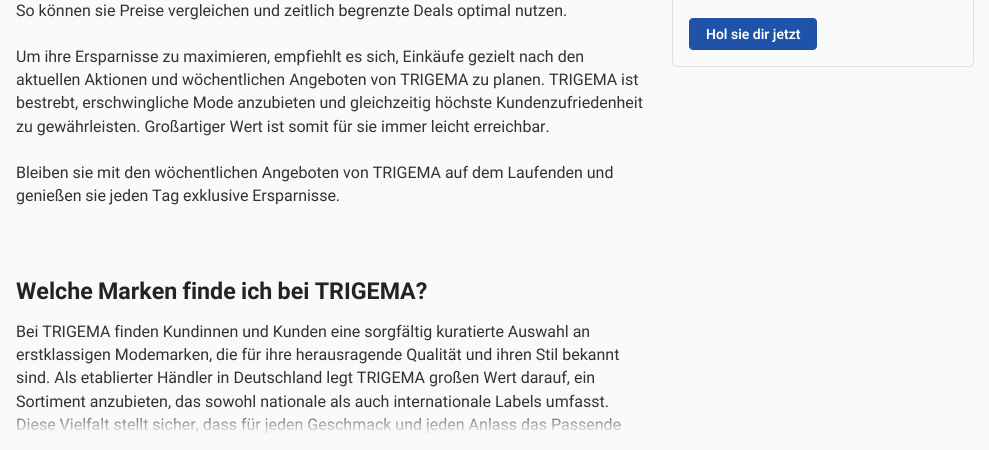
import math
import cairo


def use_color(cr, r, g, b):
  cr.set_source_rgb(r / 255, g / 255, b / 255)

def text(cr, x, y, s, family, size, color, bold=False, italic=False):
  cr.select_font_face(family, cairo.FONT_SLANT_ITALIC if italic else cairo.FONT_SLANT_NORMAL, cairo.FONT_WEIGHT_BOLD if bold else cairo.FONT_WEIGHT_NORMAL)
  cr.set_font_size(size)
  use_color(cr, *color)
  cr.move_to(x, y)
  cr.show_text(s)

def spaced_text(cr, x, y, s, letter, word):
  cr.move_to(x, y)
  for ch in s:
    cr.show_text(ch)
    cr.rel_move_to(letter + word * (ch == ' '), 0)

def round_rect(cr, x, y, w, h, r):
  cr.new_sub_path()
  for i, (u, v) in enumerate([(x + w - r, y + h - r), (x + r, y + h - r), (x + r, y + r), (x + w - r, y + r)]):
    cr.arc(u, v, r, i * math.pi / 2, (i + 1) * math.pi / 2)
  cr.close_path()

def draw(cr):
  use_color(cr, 250, 250, 250)
  cr.paint()
  round_rect(cr, 672.5, -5.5, 301, 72, 4.5)
  use_color(cr, 225, 225, 225)
  cr.set_line_width(1)
  cr.stroke()
  use_color(cr, 31, 83, 169)
  round_rect(cr, 689.5, 18.5, 127, 31, 3.5)
  cr.fill_preserve()
  cr.stroke()
  text(cr, 16, 16, "So können sie Preise vergleichen und zeitlich begrenzte Deals optimal nutzen.", "Roboto", 16, (50, 50, 50))
  text(cr, 16, 62, "Um ihre Ersparnisse zu maximieren, empfiehlt es sich, Einkäufe gezielt nach den", "Roboto", 16, (50, 50, 50))
  text(cr, 16, 85, "aktuellen Aktionen und wöchentlichen Angeboten von TRIGEMA zu planen. TRIGEMA ist", "Roboto", 16, (50, 50, 50))
  text(cr, 16, 108, "bestrebt, erschwingliche Mode anzubieten und gleichzeitig höchste Kundenzufriedenheit", "Roboto", 16, (50, 50, 50))
  text(cr, 16, 132, "zu gewährleisten. Großartiger Wert ist somit für sie immer leicht erreichbar.", "Roboto", 16, (50, 50, 50))
  text(cr, 16, 178, "Bleiben sie mit den wöchentlichen Angeboten von TRIGEMA auf dem Laufenden und", "Roboto", 16, (50, 50, 50))
  spaced_text(cr, 16, 201, "genießen sie jeden Tag exklusive Ersparnisse.", 0, -0.25)
  cr.select_font_face("Roboto", cairo.FONT_SLANT_NORMAL, cairo.FONT_WEIGHT_BOLD)
  cr.set_font_size(23.25)
  use_color(cr, 33, 36, 39)
  spaced_text(cr, 16, 299, "Welche Marken finde ich bei TRIGEMA?", 0, -0.5)
  cr.select_font_face("Roboto")
  cr.set_font_size(16)
  use_color(cr, 50, 50, 50)
  spaced_text(cr, 16, 337, "Bei TRIGEMA finden Kundinnen und Kunden eine sorgfältig kuratierte Auswahl an", 0, -0.1)
  text(cr, 16, 360, "erstklassigen Modemarken, die für ihre herausragende Qualität und ihren Stil bekannt", "Roboto", 16, (50, 50, 50))
  text(cr, 16, 383, "sind. Als etablierter Händler in Deutschland legt TRIGEMA großen Wert darauf, ein", "Roboto", 16, (50, 50, 50))
  text(cr, 16, 407, "Sortiment anzubieten, das sowohl nationale als auch internationale Labels umfasst.", "Roboto", 16, (50, 50, 50))
  text(cr, 16, 430, "Diese Vielfalt stellt sicher, dass für jeden Geschmack und jeden Anlass das Passende", "Roboto", 16, (50, 50, 50))
  gradient = cairo.LinearGradient(333, 440, 333, 410)
  gradient.add_color_stop_rgba(0.19, 0.976, 0.976, 0.976, 1)
  gradient.add_color_stop_rgba(1, 0.976, 0.976, 0.976, 0)
  cr.set_source(gradient)
  cr.rectangle(17, 417, 603, 17)
  cr.fill()
  text(cr, 706, 39, "Hol sie dir jetzt", "Roboto SemiBold", 14, (255, 255, 255))


surface = cairo.ImageSurface(cairo.FORMAT_RGB24, 989, 450)
cr = cairo.Context(surface)
options = cairo.FontOptions()
options.set_hint_metrics(cairo.HINT_METRICS_OFF)
options.set_hint_style(cairo.HINT_STYLE_NONE)
cr.set_font_options(options)
cr.set_miter_limit(4)
draw(cr)
surface.write_to_png("out.png")
